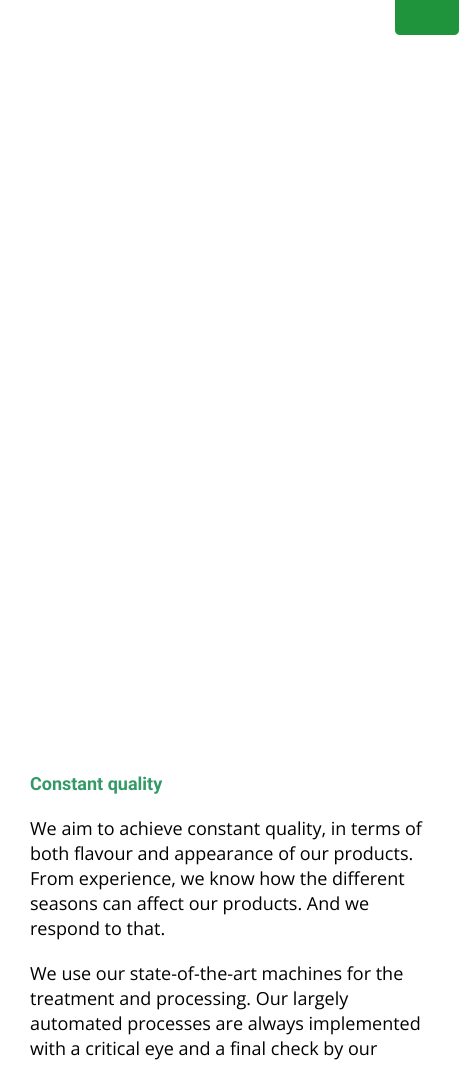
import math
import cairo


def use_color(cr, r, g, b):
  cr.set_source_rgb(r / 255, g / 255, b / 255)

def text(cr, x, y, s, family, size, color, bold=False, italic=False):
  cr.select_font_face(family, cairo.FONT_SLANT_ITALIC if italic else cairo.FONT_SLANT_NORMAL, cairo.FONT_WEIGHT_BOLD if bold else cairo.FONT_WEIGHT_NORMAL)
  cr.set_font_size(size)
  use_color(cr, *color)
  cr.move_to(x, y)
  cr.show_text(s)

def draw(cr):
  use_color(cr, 255, 255, 255)
  cr.paint()
  use_color(cr, 31, 148, 60)
  cr.new_path()
  cr.move_to(395, 0)
  cr.line_to(459, 0)
  cr.line_to(459, 30)
  cr.curve_to(459, 33, 457, 35, 454, 35)
  cr.line_to(400, 35)
  cr.curve_to(397, 35, 395, 33, 395, 30)
  cr.close_path()
  cr.fill()
  text(cr, 30, 790, "Constant quality", "Roboto", 18, (51, 153, 102), bold=True)
  text(cr, 30, 835, "We aim to achieve constant quality, in terms of", "Open Sans", 18, (0, 0, 0))
  text(cr, 30, 860, "both flavour and appearance of our products.", "Open Sans", 18, (0, 0, 0))
  text(cr, 30, 885, "From experience, we know how the different", "Open Sans", 18, (0, 0, 0))
  text(cr, 30, 910, "seasons can affect our products. And we", "Open Sans", 18, (0, 0, 0))
  text(cr, 30, 935, "respond to that.", "Open Sans", 18, (0, 0, 0))
  text(cr, 30, 980, "We use our state-of-the-art machines for the", "Open Sans", 18, (0, 0, 0))
  text(cr, 30, 1005, "treatment and processing. Our largely", "Open Sans", 18, (0, 0, 0))
  text(cr, 30, 1030, "automated processes are always implemented", "Open Sans", 18, (0, 0, 0))
  text(cr, 30, 1055, "with a critical eye and a final check by our", "Open Sans", 18, (0, 0, 0))


surface = cairo.ImageSurface(cairo.FORMAT_RGB24, 459, 1070)
cr = cairo.Context(surface)
options = cairo.FontOptions()
options.set_hint_metrics(cairo.HINT_METRICS_OFF)
options.set_hint_style(cairo.HINT_STYLE_NONE)
cr.set_font_options(options)
cr.set_miter_limit(4)
draw(cr)
surface.write_to_png("out.png")
